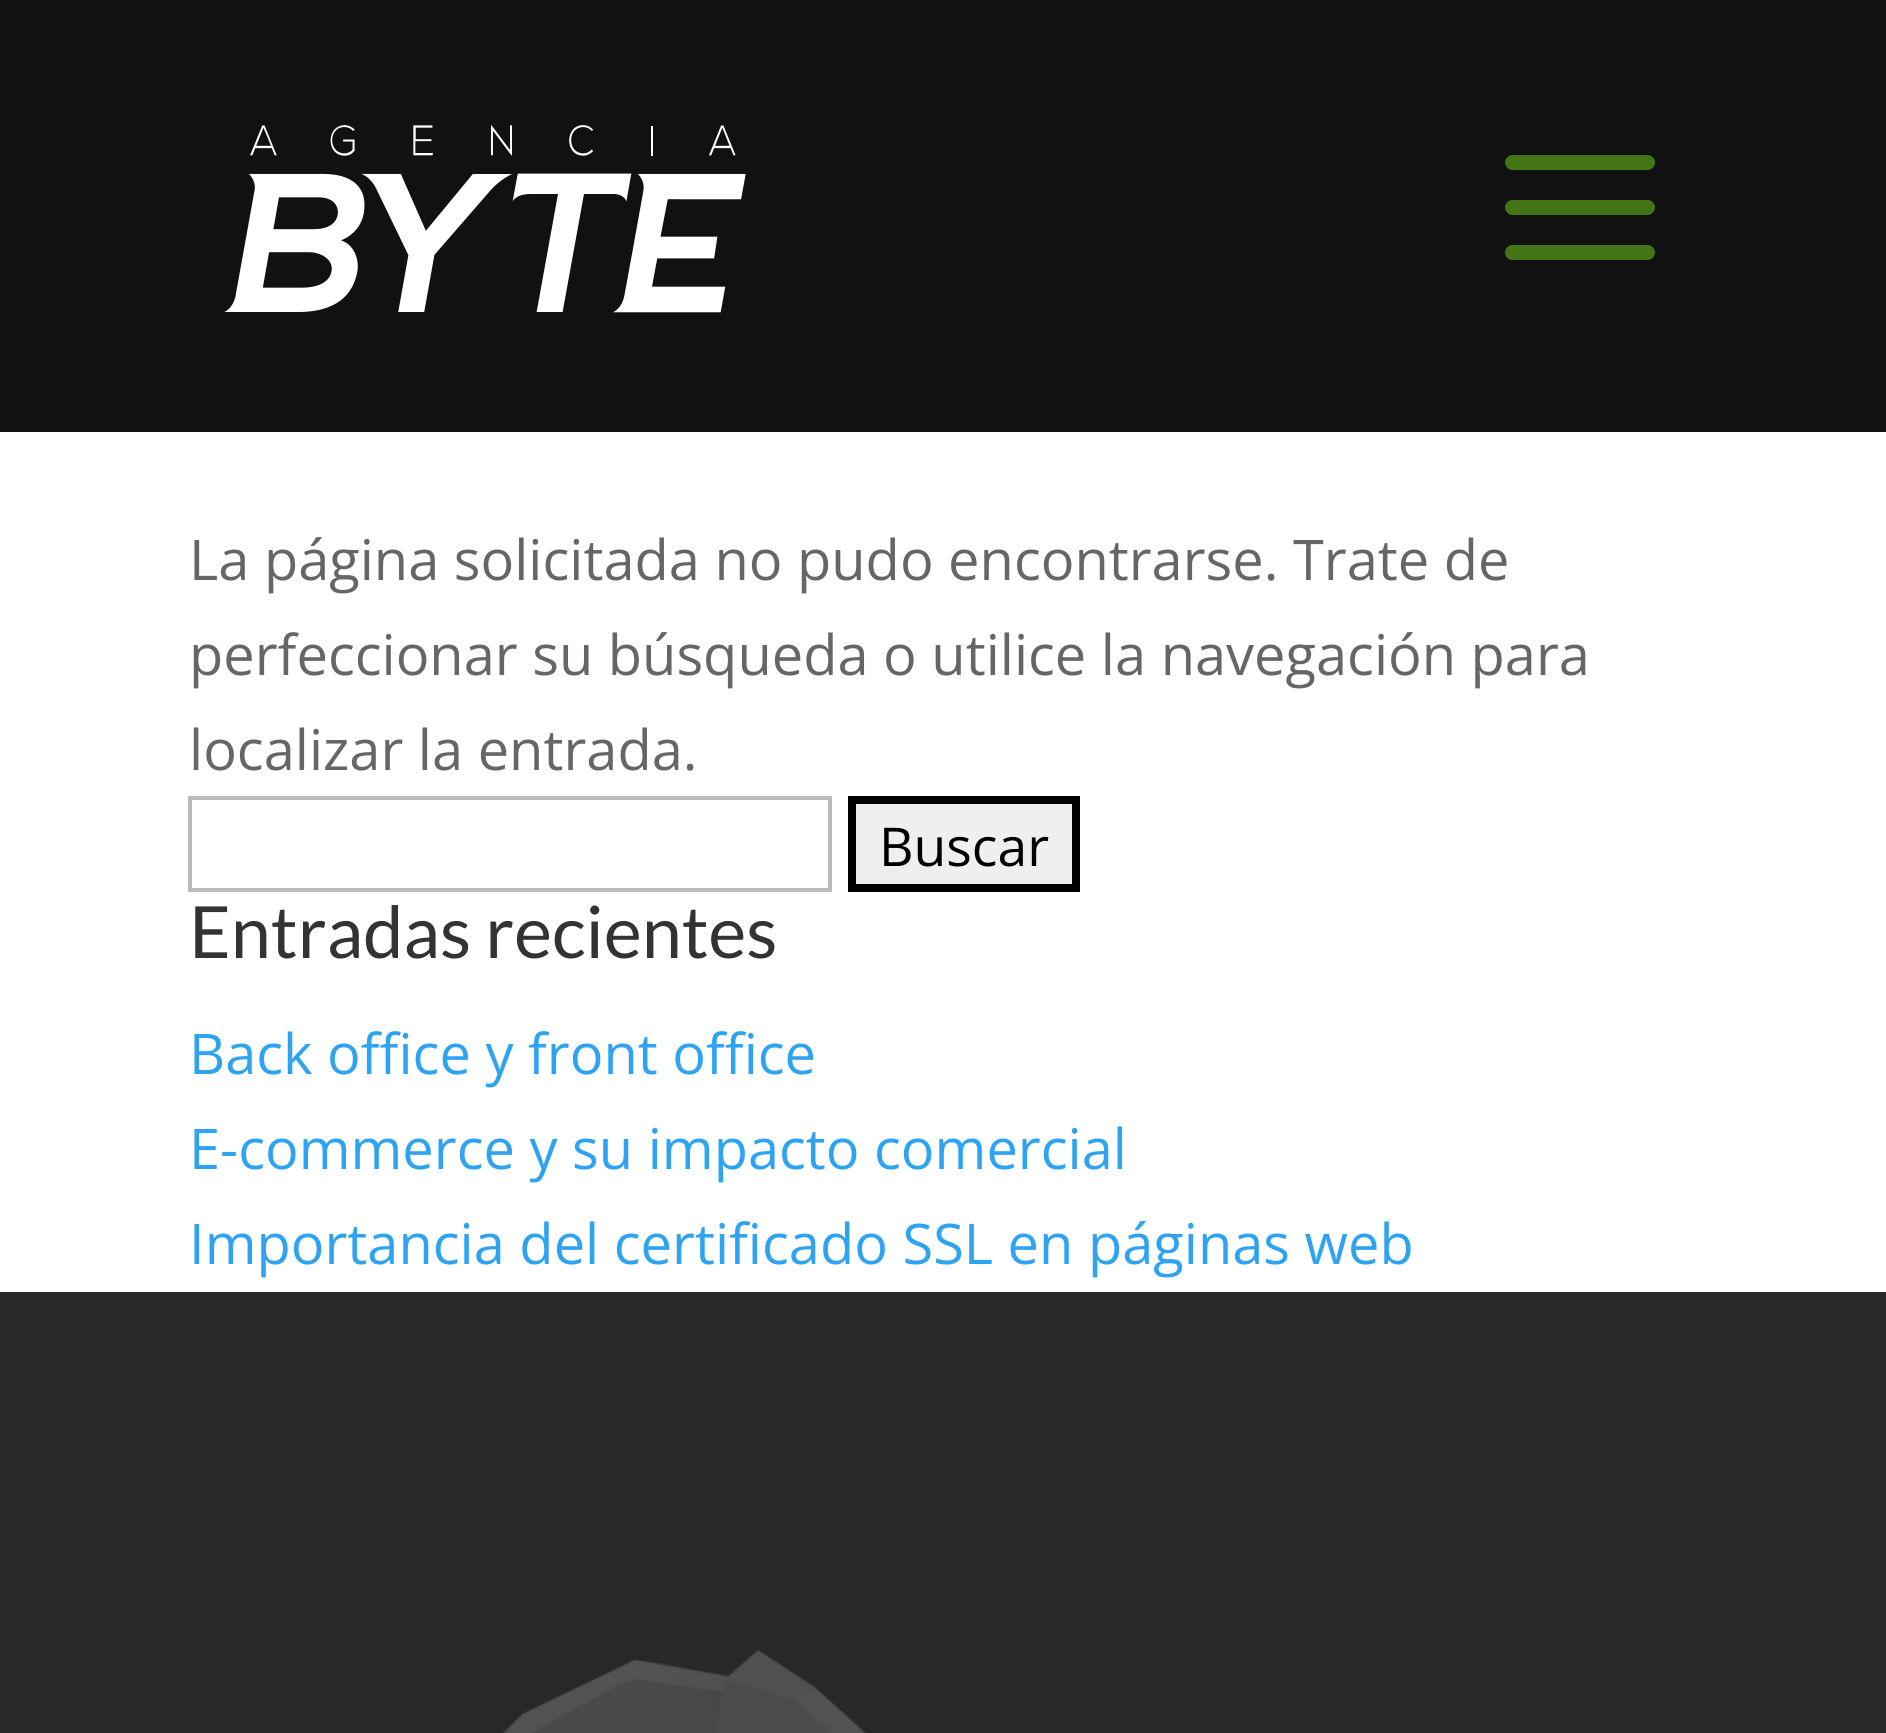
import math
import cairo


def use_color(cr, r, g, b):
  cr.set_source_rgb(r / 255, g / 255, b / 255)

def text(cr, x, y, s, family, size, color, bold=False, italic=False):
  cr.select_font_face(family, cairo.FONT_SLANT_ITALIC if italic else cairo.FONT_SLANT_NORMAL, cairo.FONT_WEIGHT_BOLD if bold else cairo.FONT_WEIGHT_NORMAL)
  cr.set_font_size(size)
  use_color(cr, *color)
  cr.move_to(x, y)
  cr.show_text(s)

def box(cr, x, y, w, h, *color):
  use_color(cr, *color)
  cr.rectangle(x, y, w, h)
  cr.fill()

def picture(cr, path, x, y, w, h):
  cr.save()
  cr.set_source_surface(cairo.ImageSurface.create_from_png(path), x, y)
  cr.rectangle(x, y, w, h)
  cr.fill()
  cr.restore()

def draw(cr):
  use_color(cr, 255, 255, 255)
  cr.paint()
  cr.set_source_rgba(0, 0, 0, 0.93)
  cr.rectangle(0, 0, 1886, 432)
  cr.fill()
  picture(cr, "img_01.png", 224, 125, 522, 188)
  picture(cr, "img_02.png", 1505, 155, 150, 105)
  cr.rectangle(190, 798, 640, 92)
  use_color(cr, 187, 187, 187)
  cr.set_line_width(4)
  cr.stroke()
  use_color(cr, 239, 239, 239)
  cr.rectangle(852, 800, 224, 88)
  cr.fill_preserve()
  use_color(cr, 0, 0, 0)
  cr.set_line_width(8)
  cr.stroke()
  box(cr, 0, 1292, 1886, 441, 40, 40, 40)
  picture(cr, "img_03.png", 502, 1649, 365, 84)
  text(cr, 189, 580, "La página solicitada no pudo encontrarse. Trate de", "Open Sans", 56, (102, 102, 102))
  text(cr, 189, 675, "perfeccionar su búsqueda o utilice la navegación para", "Open Sans", 56, (102, 102, 102))
  text(cr, 189, 770, "localizar la entrada.", "Open Sans", 56, (102, 102, 102))
  text(cr, 879, 866, "Buscar", "Open Sans", 53.5, (0, 0, 0))
  text(cr, 189, 958, "Entradas recientes", "Lato", 72, (51, 51, 51))
  text(cr, 189, 1074, "Back office y front office", "Open Sans", 56, (46, 163, 242))
  text(cr, 189, 1169, "E-commerce y su impacto comercial", "Open Sans", 56, (46, 163, 242))
  text(cr, 189, 1264, "Importancia del certificado SSL en páginas web", "Open Sans", 56, (46, 163, 242))


surface = cairo.ImageSurface(cairo.FORMAT_RGB24, 1886, 1733)
cr = cairo.Context(surface)
options = cairo.FontOptions()
options.set_hint_metrics(cairo.HINT_METRICS_OFF)
options.set_hint_style(cairo.HINT_STYLE_NONE)
cr.set_font_options(options)
cr.set_miter_limit(4)
draw(cr)
surface.write_to_png("out.png")
